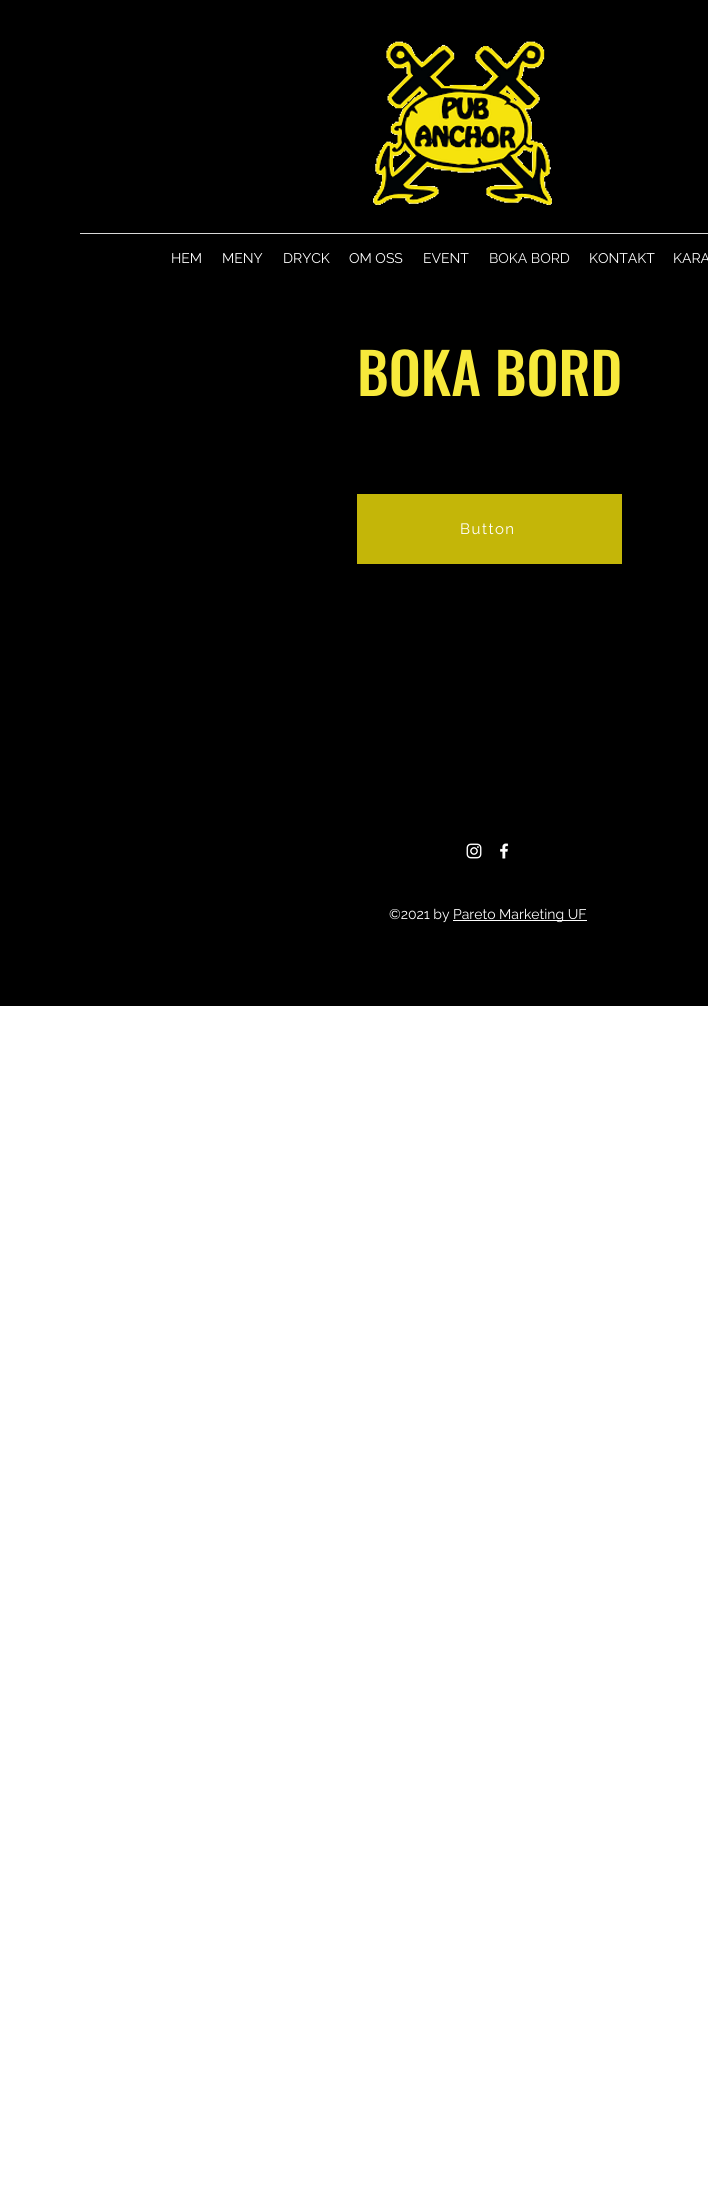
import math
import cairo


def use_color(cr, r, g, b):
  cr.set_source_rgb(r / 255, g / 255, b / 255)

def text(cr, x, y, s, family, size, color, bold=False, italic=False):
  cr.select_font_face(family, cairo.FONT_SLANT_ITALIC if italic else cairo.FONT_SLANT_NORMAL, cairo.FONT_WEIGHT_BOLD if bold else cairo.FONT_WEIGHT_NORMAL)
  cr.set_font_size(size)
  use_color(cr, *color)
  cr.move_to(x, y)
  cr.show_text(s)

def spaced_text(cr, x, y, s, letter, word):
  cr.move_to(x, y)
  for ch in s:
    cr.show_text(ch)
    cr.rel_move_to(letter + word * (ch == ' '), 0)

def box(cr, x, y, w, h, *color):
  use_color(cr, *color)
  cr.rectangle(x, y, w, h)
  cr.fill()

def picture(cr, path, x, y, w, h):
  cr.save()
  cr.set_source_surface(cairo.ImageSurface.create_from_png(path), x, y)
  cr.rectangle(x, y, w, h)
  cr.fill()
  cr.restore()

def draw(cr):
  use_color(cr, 255, 255, 255)
  cr.paint()
  box(cr, 0, 0, 708, 1006, 0, 0, 0)
  picture(cr, "img_01.png", 373, 41, 179, 164)
  box(cr, 80, 233, 628, 1, 217, 217, 217)
  box(cr, 357, 494, 265, 70, 196, 182, 8)
  picture(cr, "img_02.png", 466, 843, 16, 16)
  picture(cr, "img_03.png", 500, 843, 9, 16)
  box(cr, 453, 920, 134, 1, 255, 255, 255)
  text(cr, 171, 263, "HEM", "Raleway", 14, (255, 255, 255))
  text(cr, 222, 263, "MENY", "Raleway", 14, (255, 255, 255))
  text(cr, 283, 263, "DRYCK", "Raleway", 14, (255, 255, 255))
  text(cr, 349, 263, "OM OSS", "Raleway", 14, (255, 255, 255))
  text(cr, 423, 263, "EVENT", "Raleway", 14, (255, 255, 255))
  text(cr, 489, 263, "BOKA BORD", "Raleway", 14, (240, 240, 240))
  text(cr, 589, 263, "KONTAKT", "Raleway", 14, (255, 255, 255))
  text(cr, 673, 263, "KARA", "Raleway", 14, (255, 255, 255))
  text(cr, 357, 396, "BOKA BORD", "Oswald Medium", 57, (247, 233, 59))
  cr.select_font_face("Raleway")
  cr.set_font_size(15)
  use_color(cr, 255, 255, 255)
  spaced_text(cr, 460, 534, "Button", 1.5, 0)
  text(cr, 389, 919, "©2021 by", "Raleway", 14, (255, 255, 255))
  text(cr, 453, 919, "Pareto Marketing UF", "Raleway", 14, (255, 255, 255))


surface = cairo.ImageSurface(cairo.FORMAT_RGB24, 708, 2206)
cr = cairo.Context(surface)
options = cairo.FontOptions()
options.set_hint_metrics(cairo.HINT_METRICS_OFF)
options.set_hint_style(cairo.HINT_STYLE_NONE)
cr.set_font_options(options)
cr.set_miter_limit(4)
draw(cr)
surface.write_to_png("out.png")
